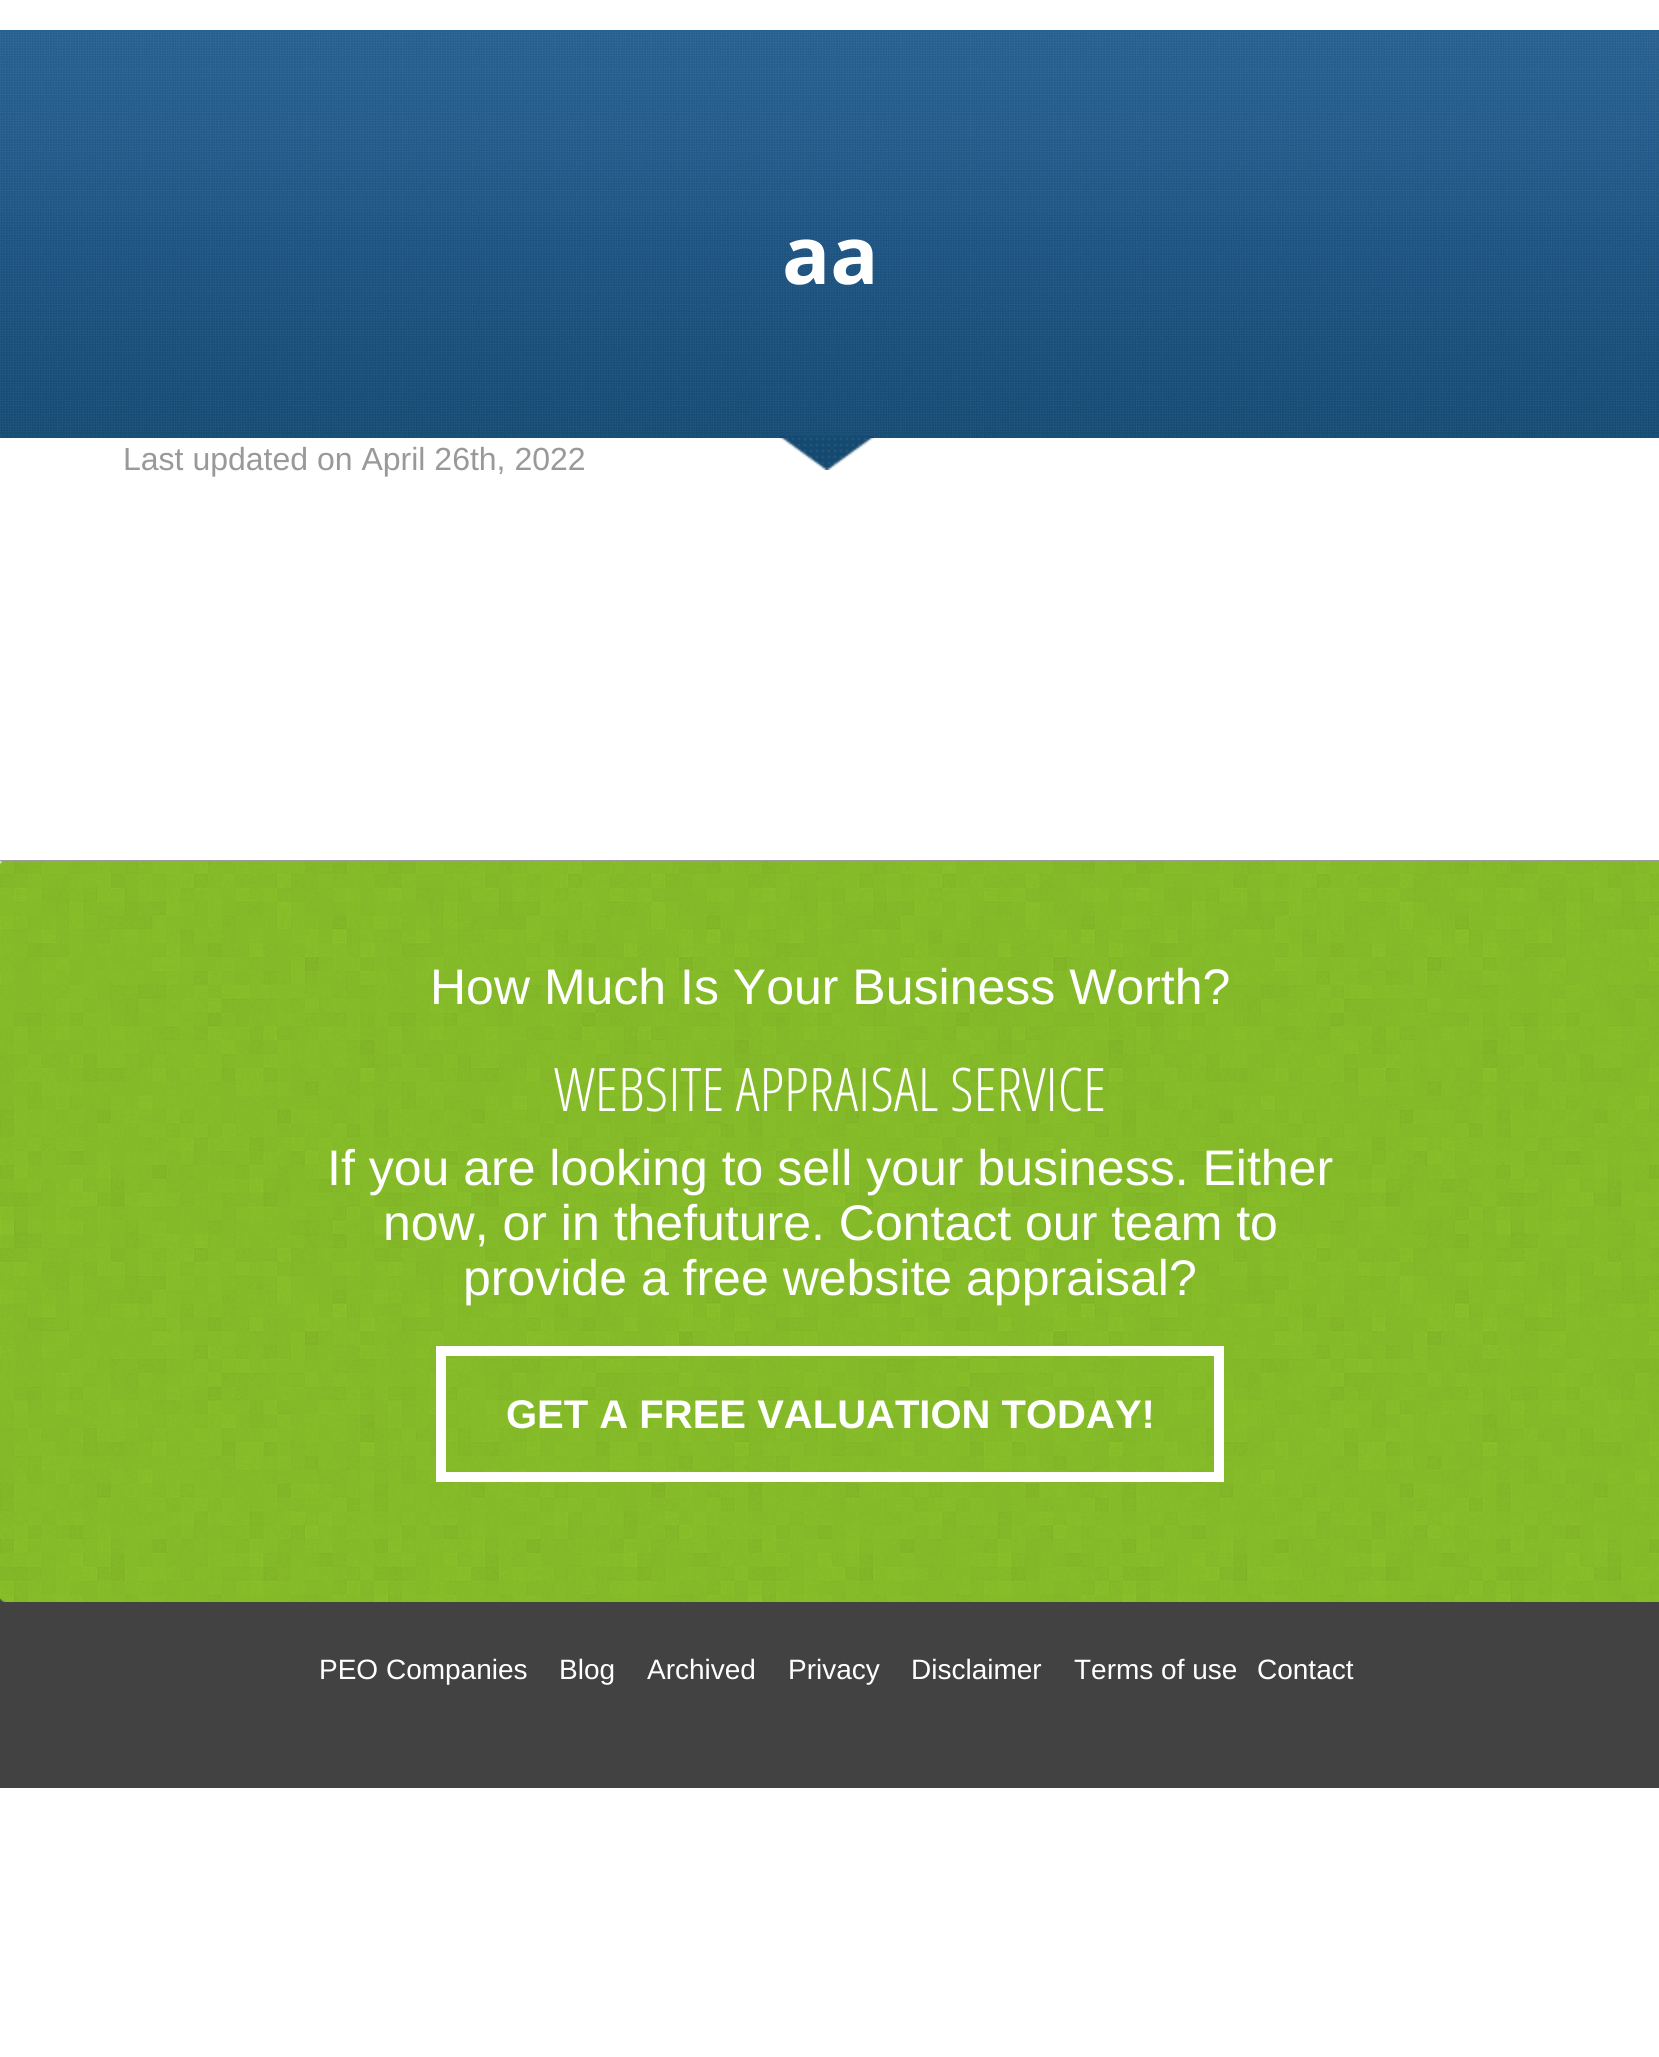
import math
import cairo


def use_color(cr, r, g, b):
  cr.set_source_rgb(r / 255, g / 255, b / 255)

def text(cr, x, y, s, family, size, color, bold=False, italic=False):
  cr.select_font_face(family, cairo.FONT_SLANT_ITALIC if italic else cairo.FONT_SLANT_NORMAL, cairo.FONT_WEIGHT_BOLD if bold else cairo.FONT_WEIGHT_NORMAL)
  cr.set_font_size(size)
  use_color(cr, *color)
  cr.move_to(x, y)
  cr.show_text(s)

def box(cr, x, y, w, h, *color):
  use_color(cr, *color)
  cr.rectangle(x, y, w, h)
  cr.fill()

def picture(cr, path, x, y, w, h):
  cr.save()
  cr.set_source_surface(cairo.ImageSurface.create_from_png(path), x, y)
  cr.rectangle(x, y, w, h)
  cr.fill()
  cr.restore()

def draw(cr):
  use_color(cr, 255, 255, 255)
  cr.paint()
  picture(cr, "img_01.png", 0, 30, 1659, 408)
  picture(cr, "img_02.png", 780, 436, 94, 34)
  picture(cr, "img_03.png", 0, 860, 1659, 742)
  cr.rectangle(441, 1351, 778, 126)
  use_color(cr, 255, 255, 255)
  cr.set_line_width(10)
  cr.stroke()
  box(cr, 0, 1602, 1659, 186, 66, 66, 66)
  text(cr, 782, 284, "aa", "Open Sans", 80, (255, 255, 255), bold=True)
  text(cr, 123, 470, "Last updated on April 26th, 2022", "Liberation Sans", 32, (153, 153, 153))
  text(cr, 430, 1004, "How Much Is Your Business Worth?", "Liberation Sans", 50, (255, 255, 255))
  text(cr, 554, 1111, "WEBSITE APPRAISAL SERVICE", "Open Sans Condensed Light", 60, (255, 255, 255))
  text(cr, 327, 1185, "If you are looking to sell your business. Either", "Liberation Sans", 50, (255, 255, 255))
  text(cr, 383, 1240, "now, or in thefuture. Contact our team to", "Liberation Sans", 50, (255, 255, 255))
  text(cr, 463, 1295, "provide a free website appraisal?", "Liberation Sans", 50, (255, 255, 255))
  text(cr, 506, 1428, "GET A FREE VALUATION TODAY!", "Liberation Sans", 40, (255, 255, 255), bold=True)
  text(cr, 319, 1679, "PEO Companies", "Liberation Sans", 28, (255, 255, 255))
  text(cr, 559, 1679, "Blog", "Liberation Sans", 28, (255, 255, 255))
  text(cr, 647, 1679, "Archived", "Liberation Sans", 28, (255, 255, 255))
  text(cr, 788, 1679, "Privacy", "Liberation Sans", 28, (255, 255, 255))
  text(cr, 911, 1679, "Disclaimer", "Liberation Sans", 28, (255, 255, 255))
  text(cr, 1074, 1679, "Terms of use", "Liberation Sans", 28, (255, 255, 255))
  text(cr, 1257, 1679, "Contact", "Liberation Sans", 28, (255, 255, 255))


surface = cairo.ImageSurface(cairo.FORMAT_RGB24, 1659, 2057)
cr = cairo.Context(surface)
options = cairo.FontOptions()
options.set_hint_metrics(cairo.HINT_METRICS_OFF)
options.set_hint_style(cairo.HINT_STYLE_NONE)
cr.set_font_options(options)
cr.set_miter_limit(4)
draw(cr)
surface.write_to_png("out.png")
